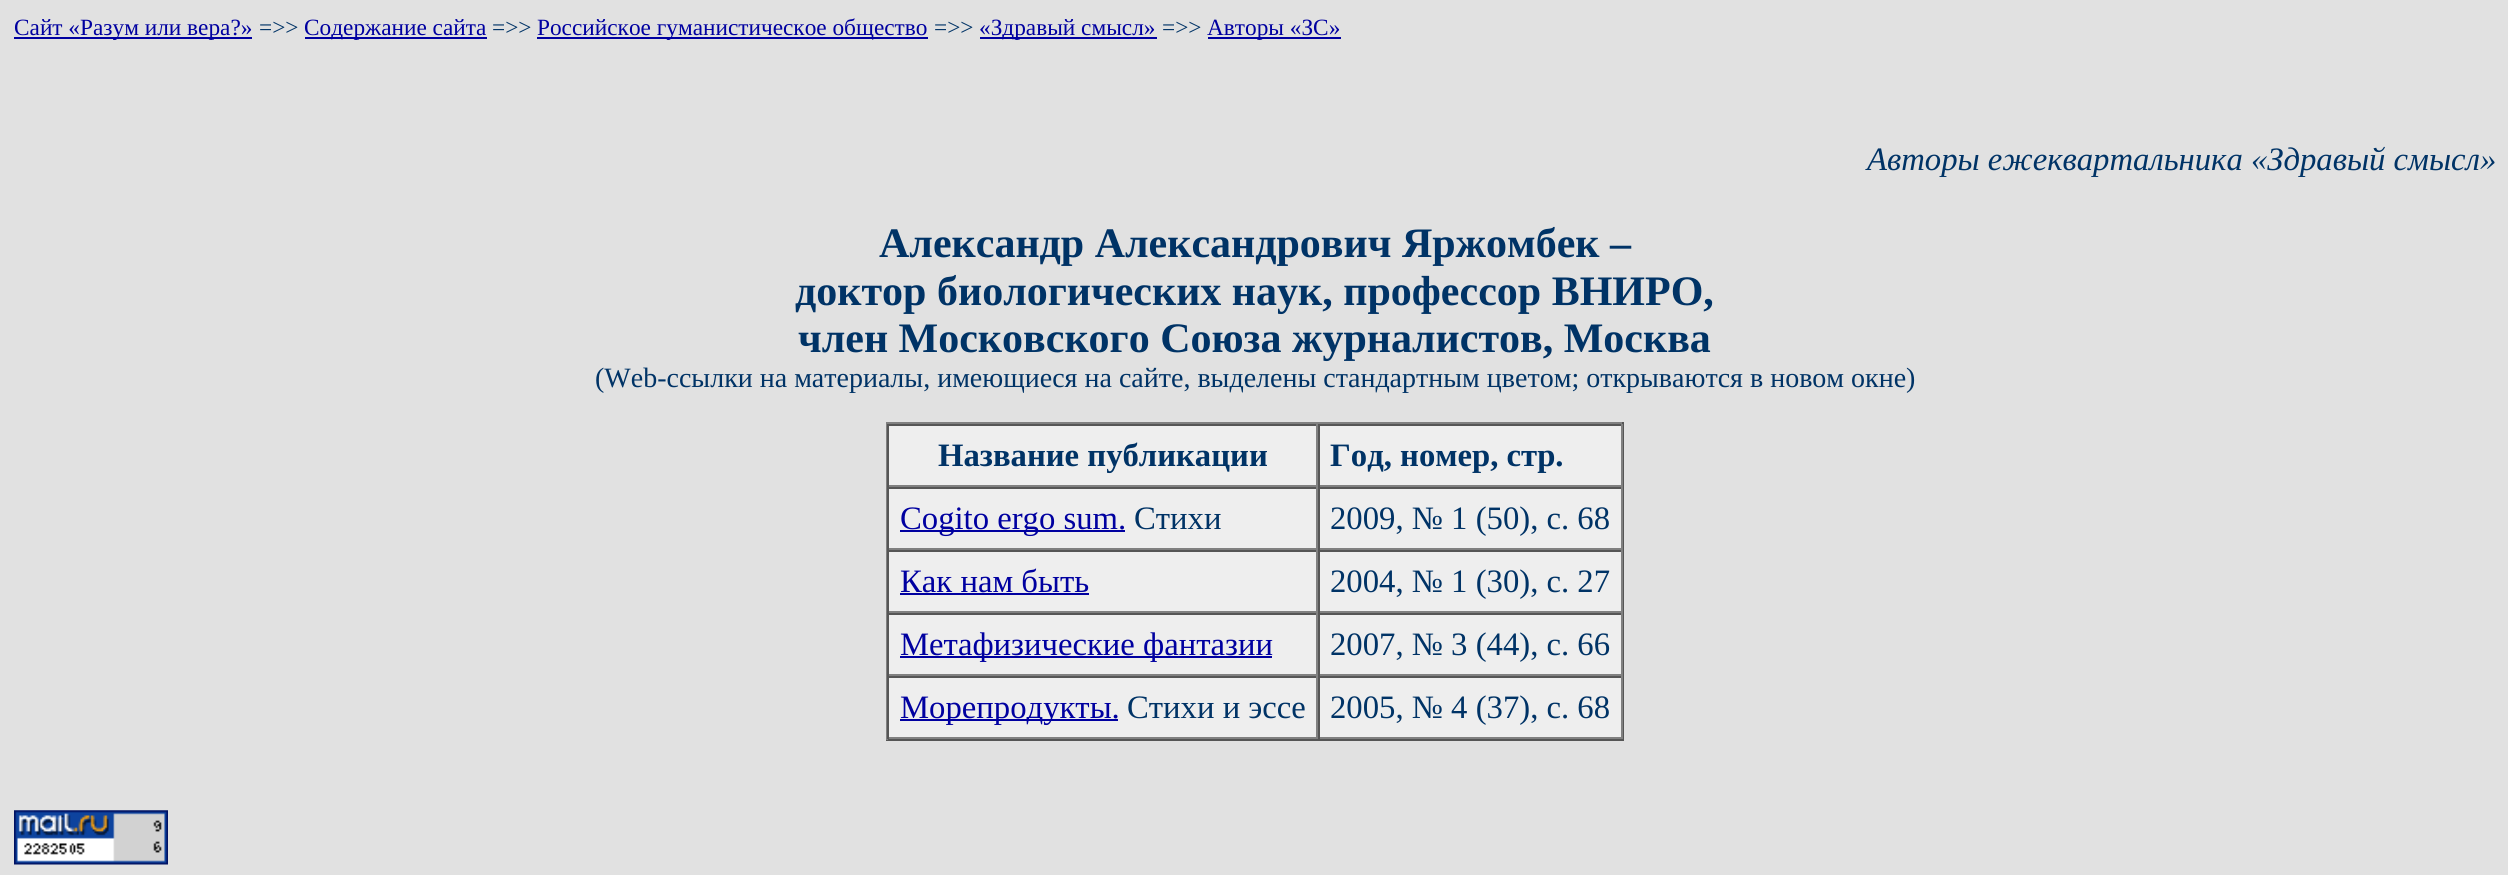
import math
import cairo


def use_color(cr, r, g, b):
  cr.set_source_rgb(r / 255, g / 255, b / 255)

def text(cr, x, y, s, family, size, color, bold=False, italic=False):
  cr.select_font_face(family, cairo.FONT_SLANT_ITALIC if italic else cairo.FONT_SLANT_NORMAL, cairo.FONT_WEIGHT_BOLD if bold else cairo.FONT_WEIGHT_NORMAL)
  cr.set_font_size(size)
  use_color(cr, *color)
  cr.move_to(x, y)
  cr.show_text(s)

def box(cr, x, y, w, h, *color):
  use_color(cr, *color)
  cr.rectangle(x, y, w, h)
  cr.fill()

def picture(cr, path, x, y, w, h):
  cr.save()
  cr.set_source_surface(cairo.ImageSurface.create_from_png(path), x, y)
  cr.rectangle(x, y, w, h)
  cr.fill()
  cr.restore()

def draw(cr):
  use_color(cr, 225, 225, 225)
  cr.paint()
  box(cr, 14, 37, 238, 2, 0, 0, 160)
  box(cr, 305, 37, 182, 2, 0, 0, 160)
  box(cr, 537, 37, 391, 2, 0, 0, 160)
  box(cr, 980, 37, 177, 2, 0, 0, 160)
  box(cr, 1208, 37, 133, 2, 0, 0, 160)
  box(cr, 889, 426, 732, 311, 238, 238, 238)
  box(cr, 886, 422, 738, 2, 128, 128, 128)
  box(cr, 1622, 422, 2, 318, 85, 85, 85)
  box(cr, 886, 739, 738, 2, 85, 85, 85)
  box(cr, 886, 422, 2, 318, 128, 128, 128)
  box(cr, 887, 424, 735, 2, 85, 85, 85)
  box(cr, 1316, 424, 2, 63, 128, 128, 128)
  box(cr, 887, 485, 431, 2, 128, 128, 128)
  box(cr, 887, 424, 2, 63, 85, 85, 85)
  box(cr, 1621, 424, 2, 63, 128, 128, 128)
  box(cr, 1318, 485, 304, 2, 128, 128, 128)
  box(cr, 1318, 424, 2, 63, 85, 85, 85)
  box(cr, 887, 487, 735, 2, 85, 85, 85)
  box(cr, 1316, 487, 2, 63, 128, 128, 128)
  box(cr, 887, 548, 431, 2, 128, 128, 128)
  box(cr, 887, 487, 2, 63, 85, 85, 85)
  box(cr, 900, 530, 225, 2, 0, 0, 160)
  box(cr, 1621, 487, 2, 63, 128, 128, 128)
  box(cr, 1318, 548, 304, 2, 128, 128, 128)
  box(cr, 1318, 487, 2, 63, 85, 85, 85)
  box(cr, 887, 550, 735, 2, 85, 85, 85)
  box(cr, 1316, 550, 2, 63, 128, 128, 128)
  box(cr, 887, 611, 431, 2, 128, 128, 128)
  box(cr, 887, 550, 2, 63, 85, 85, 85)
  box(cr, 900, 593, 189, 2, 0, 0, 160)
  box(cr, 1621, 550, 2, 63, 128, 128, 128)
  box(cr, 1318, 611, 304, 2, 128, 128, 128)
  box(cr, 1318, 550, 2, 63, 85, 85, 85)
  box(cr, 887, 613, 735, 2, 85, 85, 85)
  box(cr, 1316, 613, 2, 63, 128, 128, 128)
  box(cr, 887, 674, 431, 2, 128, 128, 128)
  box(cr, 887, 613, 2, 63, 85, 85, 85)
  box(cr, 900, 656, 372, 2, 0, 0, 160)
  box(cr, 1621, 613, 2, 63, 128, 128, 128)
  box(cr, 1318, 674, 304, 2, 128, 128, 128)
  box(cr, 1318, 613, 2, 63, 85, 85, 85)
  box(cr, 887, 676, 735, 2, 85, 85, 85)
  box(cr, 1316, 676, 2, 63, 128, 128, 128)
  box(cr, 887, 737, 431, 2, 128, 128, 128)
  box(cr, 887, 676, 2, 63, 85, 85, 85)
  box(cr, 900, 719, 218, 2, 0, 0, 160)
  box(cr, 1621, 676, 2, 63, 128, 128, 128)
  box(cr, 1318, 737, 304, 2, 128, 128, 128)
  box(cr, 1318, 676, 2, 63, 85, 85, 85)
  picture(cr, "img_01.png", 14, 810, 154, 55)
  text(cr, 14, 35, "Сайт «Разум или вера?»", "Liberation Serif", 23.3, (0, 0, 160))
  text(cr, 259, 35, "=>>", "Liberation Serif", 23.3, (0, 51, 102))
  text(cr, 304, 35, "Содержание сайта", "Liberation Serif", 23.3, (0, 0, 160))
  text(cr, 492, 35, "=>>", "Liberation Serif", 23.3, (0, 51, 102))
  text(cr, 537, 35, "Российское гуманистическое общество", "Liberation Serif", 23.3, (0, 0, 160))
  text(cr, 934, 35, "=>>", "Liberation Serif", 23.3, (0, 51, 102))
  text(cr, 979, 35, "«Здравый смысл»", "Liberation Serif", 23.3, (0, 0, 160))
  text(cr, 1162, 35, "=>>", "Liberation Serif", 23.3, (0, 51, 102))
  text(cr, 1207, 35, "Авторы «ЗС»", "Liberation Serif", 23.3, (0, 0, 160))
  text(cr, 1867, 170, "Авторы ежеквартальника «Здравый смысл»", "Liberation Serif", 32.7, (0, 51, 102), italic=True)
  text(cr, 879, 257, "Александр Александрович Яржомбек –", "Liberation Serif", 42, (0, 51, 102), bold=True)
  text(cr, 795, 305, "доктор биологических наук, профессор ВНИРО,", "Liberation Serif", 42, (0, 51, 102), bold=True)
  text(cr, 798, 352, "член Московского Союза журналистов, Москва", "Liberation Serif", 42, (0, 51, 102), bold=True)
  text(cr, 595, 387, "(Web-ссылки на материалы, имеющиеся на сайте, выделены стандартным цветом; открываются в новом окне)", "Liberation Serif", 28, (0, 51, 102))
  text(cr, 938, 466, "Название публикации", "Liberation Serif", 32.7, (0, 51, 102), bold=True)
  text(cr, 1330, 466, "Год, номер, стр.", "Liberation Serif", 32.7, (0, 51, 102), bold=True)
  text(cr, 900, 529, "Cogito ergo sum.", "Liberation Serif", 32.7, (0, 0, 160))
  text(cr, 1134, 529, "Стихи", "Liberation Serif", 32.7, (0, 51, 102))
  text(cr, 1330, 529, "2009, № 1 (50), с. 68", "Liberation Serif", 32.7, (0, 51, 102))
  text(cr, 900, 592, "Как нам быть", "Liberation Serif", 32.7, (0, 0, 160))
  text(cr, 1330, 592, "2004, № 1 (30), с. 27", "Liberation Serif", 32.7, (0, 51, 102))
  text(cr, 900, 655, "Метафизические фантазии", "Liberation Serif", 32.7, (0, 0, 160))
  text(cr, 1330, 655, "2007, № 3 (44), с. 66", "Liberation Serif", 32.7, (0, 51, 102))
  text(cr, 900, 718, "Морепродукты.", "Liberation Serif", 32.7, (0, 0, 160))
  text(cr, 1127, 718, "Стихи и эссе", "Liberation Serif", 32.7, (0, 51, 102))
  text(cr, 1330, 718, "2005, № 4 (37), с. 68", "Liberation Serif", 32.7, (0, 51, 102))


surface = cairo.ImageSurface(cairo.FORMAT_RGB24, 2508, 875)
cr = cairo.Context(surface)
options = cairo.FontOptions()
options.set_hint_metrics(cairo.HINT_METRICS_OFF)
options.set_hint_style(cairo.HINT_STYLE_NONE)
cr.set_font_options(options)
cr.set_miter_limit(4)
draw(cr)
surface.write_to_png("out.png")
